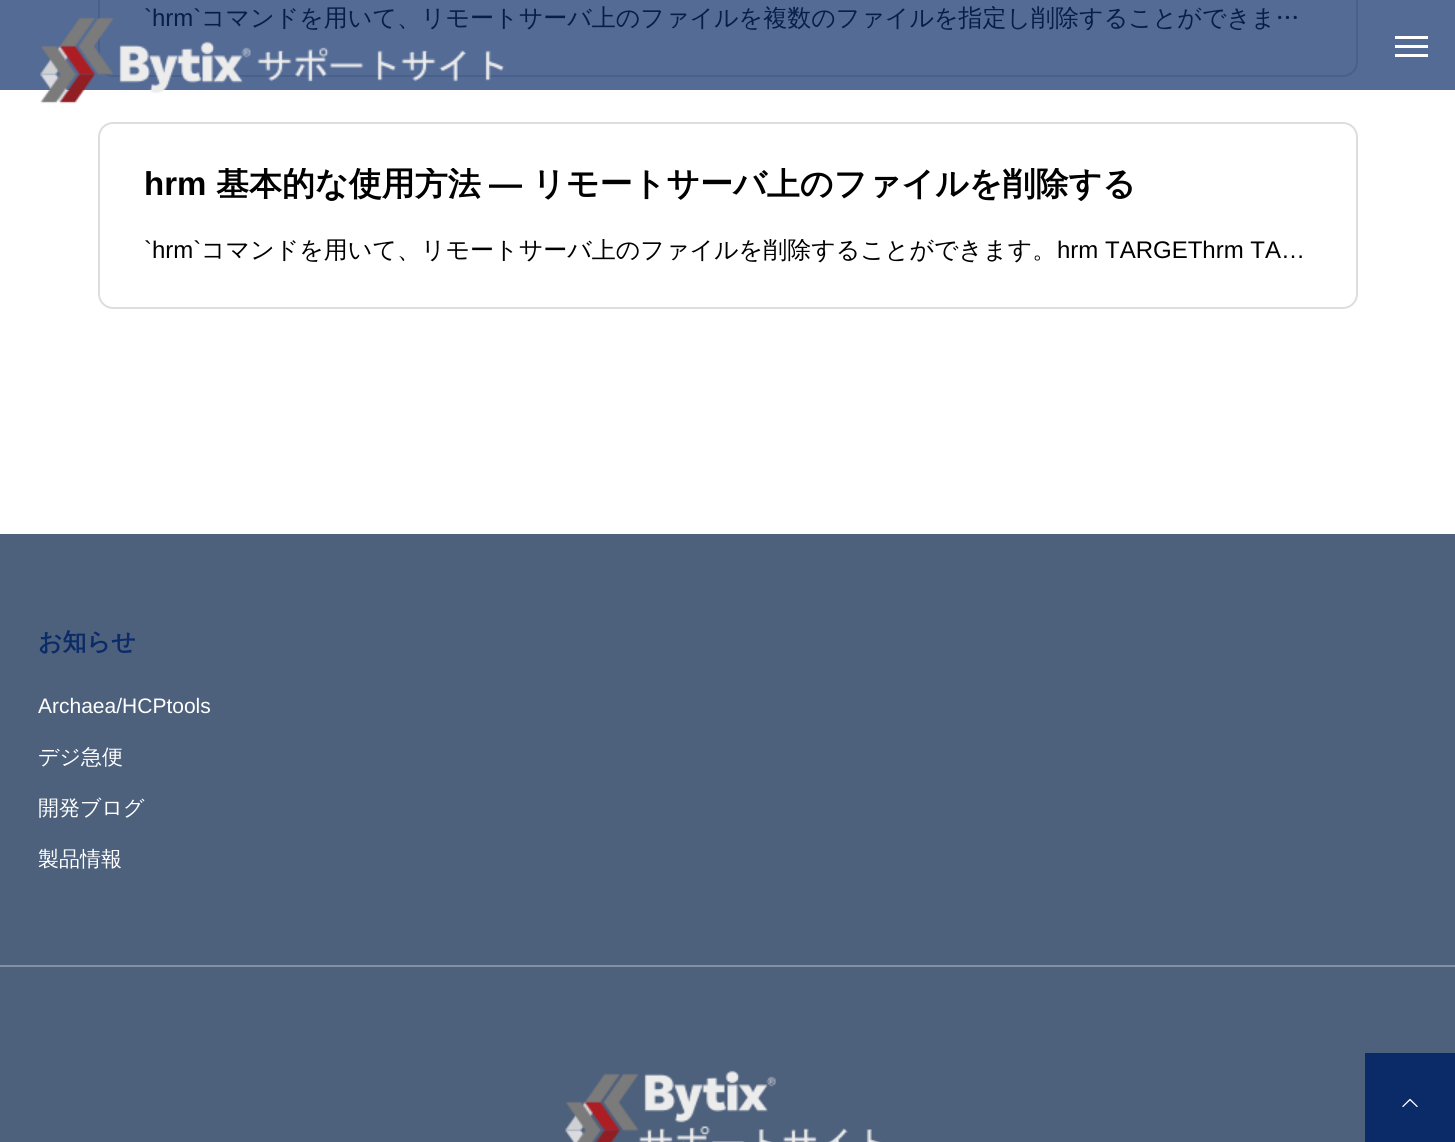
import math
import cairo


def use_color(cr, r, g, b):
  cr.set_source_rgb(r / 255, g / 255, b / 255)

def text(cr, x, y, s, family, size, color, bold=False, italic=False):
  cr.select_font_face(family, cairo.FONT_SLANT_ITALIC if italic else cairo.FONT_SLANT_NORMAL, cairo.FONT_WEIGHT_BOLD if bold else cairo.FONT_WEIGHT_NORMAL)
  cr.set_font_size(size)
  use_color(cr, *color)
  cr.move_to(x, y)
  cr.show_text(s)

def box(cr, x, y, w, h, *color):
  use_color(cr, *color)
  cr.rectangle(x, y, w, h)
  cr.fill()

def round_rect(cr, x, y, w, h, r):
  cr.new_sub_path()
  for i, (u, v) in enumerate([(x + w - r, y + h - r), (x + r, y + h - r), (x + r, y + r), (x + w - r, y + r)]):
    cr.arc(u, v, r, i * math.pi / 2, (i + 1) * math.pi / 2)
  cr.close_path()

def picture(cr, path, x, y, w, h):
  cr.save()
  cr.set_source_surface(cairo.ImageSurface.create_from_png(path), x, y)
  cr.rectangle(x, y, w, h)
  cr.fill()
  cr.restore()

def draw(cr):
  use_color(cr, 255, 255, 255)
  cr.paint()
  box(cr, 0, 0, 1455, 90, 84, 107, 149)
  round_rect(cr, 99, -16, 1258, 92, 14)
  use_color(cr, 73, 96, 139)
  cr.stroke()
  round_rect(cr, 99, 123, 1258, 185, 14)
  use_color(cr, 221, 221, 221)
  cr.stroke()
  box(cr, 0, 534, 1455, 608, 77, 96, 124)
  box(cr, 0, 965, 1455, 2, 130, 144, 163)
  picture(cr, "img_01.png", 565, 1070, 316, 72)
  box(cr, 1365, 1053, 90, 89, 10, 43, 104)
  picture(cr, "img_02.png", 1402, 1098, 16, 9)
  box(cr, 1395, 36, 33, 3, 255, 255, 255)
  box(cr, 1395, 45, 33, 3, 255, 255, 255)
  box(cr, 1395, 54, 33, 3, 255, 255, 255)
  text(cr, 144, 26, "`hrm`", "Liberation Sans", 24, (7, 30, 73))
  cr.save()
  cr.rectangle(144, 6, 1167, 24)
  cr.clip()
  text(cr, 201, 26, "コマンドを用いて、リモートサーバ上のファイルを複数のファイルを指定し削除することができま…", "WenQuanYi Zen Hei Medium", 24, (7, 30, 73))
  cr.restore()
  text(cr, 144, 195, "hrm", "Liberation Sans", 33, (0, 0, 0), bold=True)
  cr.save()
  cr.rectangle(144, 168, 1167, 33)
  cr.clip()
  text(cr, 216, 195, "基本的な使用方法", "WenQuanYi Zen Hei", 33, (0, 0, 0), bold=True)
  cr.restore()
  text(cr, 489, 195, "―", "Liberation Sans", 33, (0, 0, 0), bold=True)
  cr.save()
  cr.rectangle(144, 168, 1167, 33)
  cr.clip()
  text(cr, 532, 195, "リモートサーバ上のファイルを削除する", "WenQuanYi Zen Hei", 33, (0, 0, 0), bold=True)
  cr.restore()
  text(cr, 144, 258, "`hrm`", "Liberation Sans", 24, (0, 0, 0))
  cr.save()
  cr.rectangle(144, 239, 1167, 24)
  cr.clip()
  text(cr, 201, 258, "コマンドを用いて、リモートサーバ上のファイルを削除することができます。", "WenQuanYi Zen Hei Medium", 24, (0, 0, 0))
  cr.restore()
  text(cr, 1057, 258, "hrm TARGEThrm TA…", "Liberation Sans", 24, (0, 0, 0))
  text(cr, 38, 650, "お知らせ", "WenQuanYi Zen Hei", 24, (10, 43, 104), bold=True)
  text(cr, 38, 713, "Archaea/HCPtools", "Liberation Sans", 21, (255, 255, 255))
  text(cr, 38, 764, "デジ急便", "WenQuanYi Zen Hei Medium", 21, (255, 255, 255))
  text(cr, 38, 815, "開発ブログ", "WenQuanYi Zen Hei Medium", 21, (255, 255, 255))
  text(cr, 38, 866, "製品情報", "WenQuanYi Zen Hei Medium", 21, (255, 255, 255))
  picture(cr, "img_03.png", 40, 17, 465, 87)


surface = cairo.ImageSurface(cairo.FORMAT_RGB24, 1455, 1142)
cr = cairo.Context(surface)
options = cairo.FontOptions()
options.set_hint_metrics(cairo.HINT_METRICS_OFF)
options.set_hint_style(cairo.HINT_STYLE_NONE)
cr.set_font_options(options)
cr.set_miter_limit(4)
draw(cr)
surface.write_to_png("out.png")
